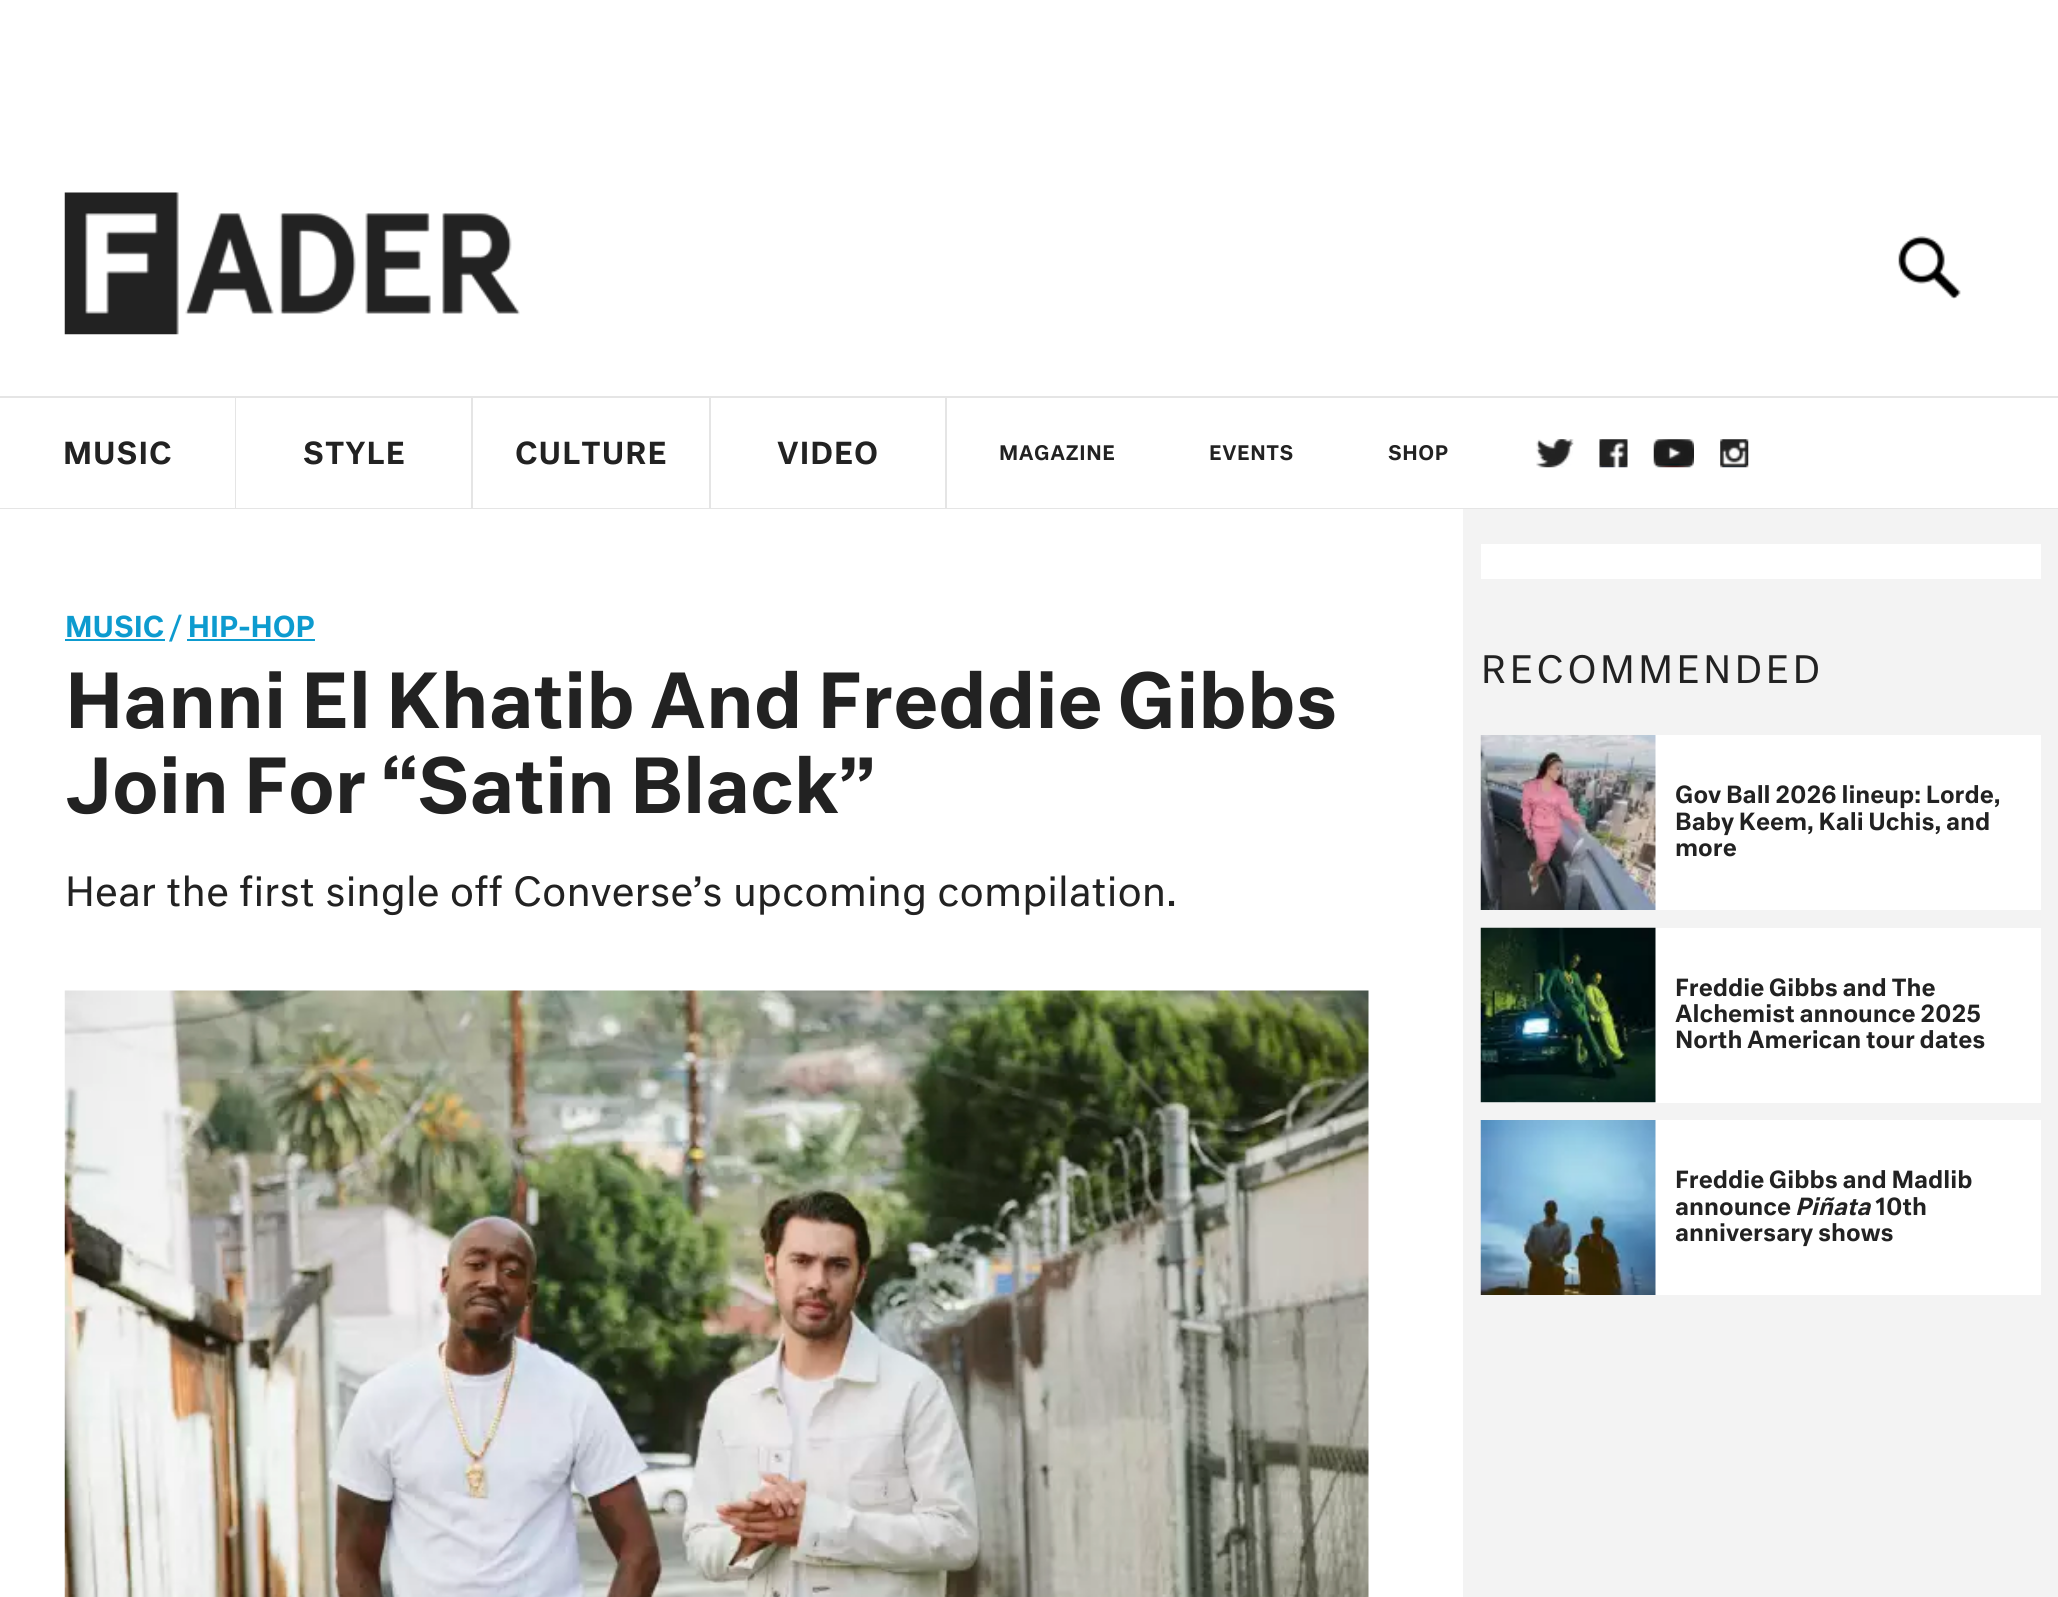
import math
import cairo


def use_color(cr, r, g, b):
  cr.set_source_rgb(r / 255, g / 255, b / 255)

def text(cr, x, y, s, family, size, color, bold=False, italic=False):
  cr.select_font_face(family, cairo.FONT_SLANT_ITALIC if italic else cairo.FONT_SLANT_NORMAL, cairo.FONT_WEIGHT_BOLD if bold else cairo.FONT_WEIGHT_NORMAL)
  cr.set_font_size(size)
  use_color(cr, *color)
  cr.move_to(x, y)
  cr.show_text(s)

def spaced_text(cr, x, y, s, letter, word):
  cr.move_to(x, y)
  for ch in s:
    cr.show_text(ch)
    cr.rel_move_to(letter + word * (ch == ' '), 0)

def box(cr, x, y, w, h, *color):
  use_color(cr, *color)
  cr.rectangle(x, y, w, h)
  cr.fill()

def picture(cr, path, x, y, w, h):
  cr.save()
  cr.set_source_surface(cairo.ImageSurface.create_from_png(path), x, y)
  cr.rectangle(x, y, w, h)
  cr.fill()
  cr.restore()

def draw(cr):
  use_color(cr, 255, 255, 255)
  cr.paint()
  picture(cr, "img_01.png", 64, 192, 456, 143)
  picture(cr, "img_02.png", 1898, 236, 63, 63)
  box(cr, 0, 396, 2058, 2, 229, 229, 229)
  box(cr, 235, 396, 1, 113, 229, 229, 229)
  box(cr, 0, 508, 236, 1, 229, 229, 229)
  box(cr, 471, 396, 2, 113, 229, 229, 229)
  box(cr, 236, 508, 237, 1, 229, 229, 229)
  box(cr, 709, 396, 2, 113, 229, 229, 229)
  box(cr, 473, 508, 238, 1, 229, 229, 229)
  box(cr, 945, 396, 2, 113, 229, 229, 229)
  box(cr, 711, 508, 1347, 1, 229, 229, 229)
  picture(cr, "img_03.png", 1536, 439, 38, 29)
  picture(cr, "img_04.png", 1599, 439, 29, 29)
  picture(cr, "img_05.png", 1653, 439, 41, 29)
  picture(cr, "img_06.png", 1720, 439, 29, 29)
  box(cr, 65, 639, 100, 2, 13, 155, 207)
  box(cr, 187, 639, 128, 2, 13, 155, 207)
  picture(cr, "img_07.png", 64, 990, 1305, 607)
  box(cr, 1463, 509, 595, 1088, 243, 243, 243)
  box(cr, 1481, 544, 560, 35, 255, 255, 255)
  box(cr, 1655, 735, 386, 175, 255, 255, 255)
  picture(cr, "img_08.png", 1480, 735, 176, 175)
  box(cr, 1481, 928, 560, 175, 255, 255, 255)
  picture(cr, "img_09.png", 1480, 927, 176, 176)
  box(cr, 1655, 1120, 386, 175, 255, 255, 255)
  picture(cr, "img_10.png", 1480, 1120, 176, 175)
  cr.select_font_face("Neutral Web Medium")
  cr.set_font_size(29.5)
  use_color(cr, 34, 34, 34)
  spaced_text(cr, 63, 464, "MUSIC", 1, 0)
  spaced_text(cr, 303, 464, "STYLE", 1, 0)
  spaced_text(cr, 515, 464, "CULTURE", 1, 0)
  spaced_text(cr, 777, 464, "VIDEO", 1, 0)
  cr.set_font_size(19.5)
  spaced_text(cr, 999, 460, "MAGAZINE", 0.5, 0)
  spaced_text(cr, 1209, 460, "EVENTS", 0.5, 0)
  spaced_text(cr, 1388, 460, "SHOP", 0.5, 0)
  text(cr, 65, 637, "MUSIC / HIP-HOP", "Neutral Web Medium", 28, (13, 155, 207))
  text(cr, 65, 728, "Hanni El Khatib And Freddie Gibbs", "Neutral Web Medium", 73.5, (34, 34, 34))
  text(cr, 65, 813, "Join For “Satin Black”", "Neutral Web Medium", 73.5, (34, 34, 34))
  text(cr, 65, 906, "Hear the first single off Converse’s upcoming compilation.", "Neutral Web", 39.2, (34, 34, 34))
  cr.set_font_size(36.75)
  spaced_text(cr, 1481, 683, "RECOMMENDED", 3.5, 0)
  text(cr, 1675, 803, "Gov Ball 2026 lineup: Lorde,", "Neutral Web Medium", 23, (34, 34, 34))
  text(cr, 1675, 830, "Baby Keem, Kali Uchis, and", "Neutral Web Medium", 23, (34, 34, 34))
  text(cr, 1675, 856, "more", "Neutral Web Medium", 23, (34, 34, 34))
  text(cr, 1675, 996, "Freddie Gibbs and The", "Neutral Web Medium", 23, (34, 34, 34))
  text(cr, 1675, 1022, "Alchemist announce 2025", "Neutral Web Medium", 23, (34, 34, 34))
  text(cr, 1675, 1048, "North American tour dates", "Neutral Web Medium", 23, (34, 34, 34))
  text(cr, 1675, 1188, "Freddie Gibbs and Madlib", "Neutral Web Medium", 23, (34, 34, 34))
  text(cr, 1675, 1215, "announce", "Neutral Web Medium", 23, (34, 34, 34))
  text(cr, 1795, 1215, "Piñata", "Neutral Web Medium", 23, (34, 34, 34), italic=True)
  text(cr, 1875, 1215, "10th", "Neutral Web Medium", 23, (34, 34, 34))
  text(cr, 1675, 1241, "anniversary shows", "Neutral Web Medium", 23, (34, 34, 34))


surface = cairo.ImageSurface(cairo.FORMAT_RGB24, 2058, 1597)
cr = cairo.Context(surface)
options = cairo.FontOptions()
options.set_hint_metrics(cairo.HINT_METRICS_OFF)
options.set_hint_style(cairo.HINT_STYLE_NONE)
cr.set_font_options(options)
cr.set_miter_limit(4)
draw(cr)
surface.write_to_png("out.png")
